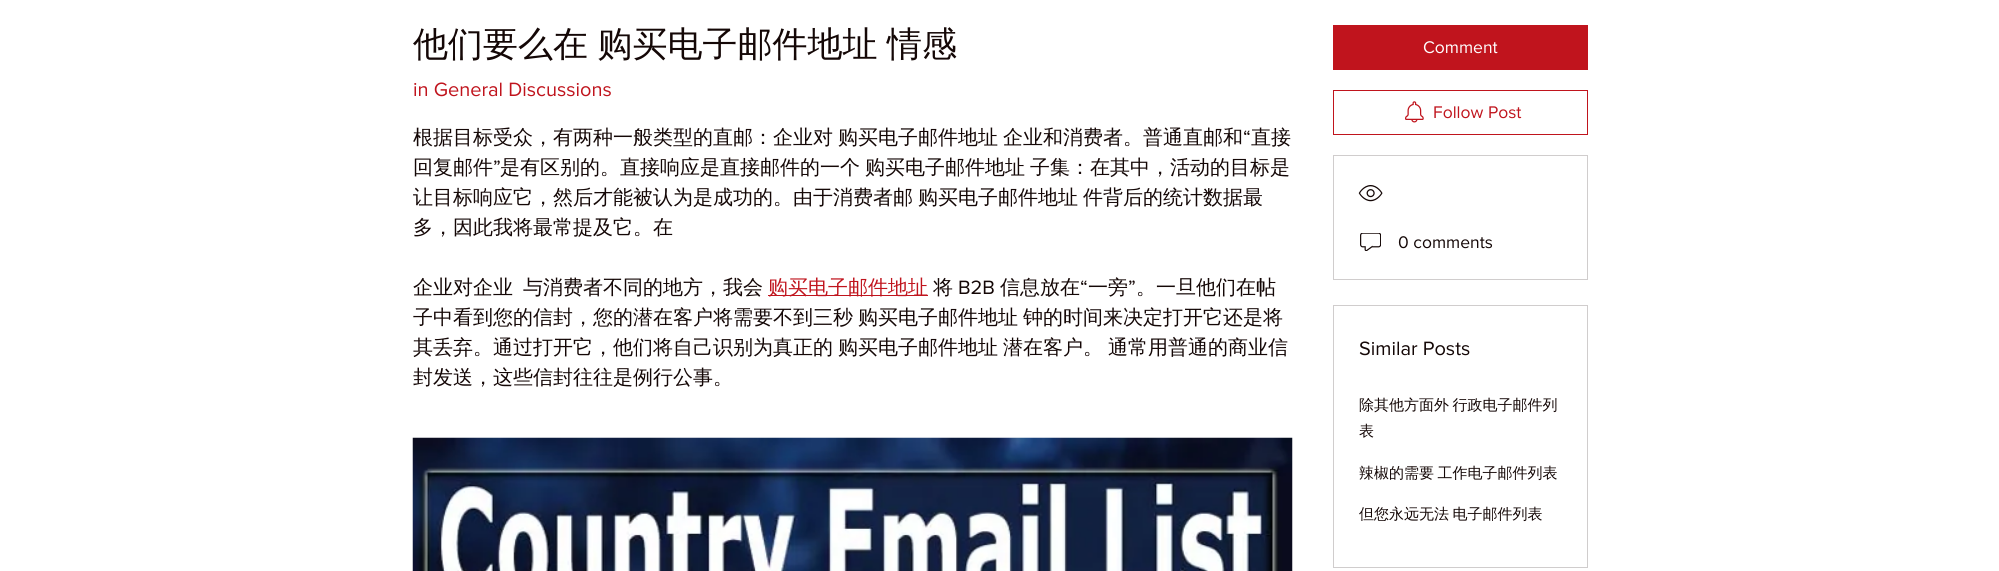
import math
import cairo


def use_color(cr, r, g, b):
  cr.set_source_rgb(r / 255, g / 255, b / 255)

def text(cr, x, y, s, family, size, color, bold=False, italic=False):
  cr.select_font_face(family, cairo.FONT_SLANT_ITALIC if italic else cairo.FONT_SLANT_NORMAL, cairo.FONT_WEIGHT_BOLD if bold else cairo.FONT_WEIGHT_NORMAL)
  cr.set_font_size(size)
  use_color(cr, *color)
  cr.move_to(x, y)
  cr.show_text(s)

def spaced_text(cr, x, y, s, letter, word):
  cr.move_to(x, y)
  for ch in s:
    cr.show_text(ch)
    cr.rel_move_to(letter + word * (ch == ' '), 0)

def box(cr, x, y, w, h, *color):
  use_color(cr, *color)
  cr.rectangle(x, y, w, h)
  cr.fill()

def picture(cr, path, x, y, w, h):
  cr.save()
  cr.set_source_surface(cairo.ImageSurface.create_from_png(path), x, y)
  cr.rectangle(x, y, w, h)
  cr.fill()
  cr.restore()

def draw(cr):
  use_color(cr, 255, 255, 255)
  cr.paint()
  box(cr, 768, 295, 160, 1, 192, 20, 29)
  picture(cr, "img_01.png", 412, 437, 881, 134)
  box(cr, 1333, 25, 255, 45, 192, 20, 29)
  cr.rectangle(1333.5, 90.5, 254, 44)
  cr.set_line_width(1)
  cr.stroke()
  picture(cr, "img_02.png", 1405, 101, 19, 22)
  cr.rectangle(1333.5, 155.5, 254, 124)
  use_color(cr, 208, 205, 205)
  cr.stroke()
  picture(cr, "img_03.png", 1358, 185, 25, 17)
  picture(cr, "img_04.png", 1360, 233, 21, 18)
  cr.rectangle(1333.5, 305.5, 254, 262)
  cr.stroke()
  cr.select_font_face("WenQuanYi Zen Hei Medium")
  cr.set_font_size(35)
  use_color(cr, 20, 7, 6)
  spaced_text(cr, 413, 56, "他们要么在 购买电子邮件地址 情感", 0, -1)
  text(cr, 413, 96, "in General Discussions", "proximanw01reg", 20, (192, 20, 29))
  cr.select_font_face("WenQuanYi Zen Hei Medium")
  use_color(cr, 20, 7, 6)
  spaced_text(cr, 413, 144, "根据目标受众，有两种一般类型的直邮：企业对 购买电子邮件地址 企业和消费者。普通直邮和", 0, -1)
  text(cr, 1243, 144, "“", "proximanw01reg", 20, (20, 7, 6))
  text(cr, 1251, 144, "直接", "WenQuanYi Zen Hei Medium", 20, (20, 7, 6))
  text(cr, 413, 174, "回复邮件", "WenQuanYi Zen Hei Medium", 20, (20, 7, 6))
  text(cr, 493, 174, "”", "proximanw01reg", 20, (20, 7, 6))
  cr.select_font_face("WenQuanYi Zen Hei Medium")
  spaced_text(cr, 500, 174, "是有区别的。直接响应是直接邮件的一个 购买电子邮件地址 子集：在其中，活动的目标是", 0, -1)
  spaced_text(cr, 413, 204, "让目标响应它，然后才能被认为是成功的。由于消费者邮 购买电子邮件地址 件背后的统计数据最", 0, -1)
  text(cr, 413, 234, "多，因此我将最常提及它。在", "WenQuanYi Zen Hei Medium", 20, (20, 7, 6))
  spaced_text(cr, 413, 294, "企业对企业  与消费者不同的地方，我会", 0, -1)
  text(cr, 768, 294, "购买电子邮件地址", "WenQuanYi Zen Hei Medium", 20, (192, 20, 29))
  text(cr, 933, 294, "将", "WenQuanYi Zen Hei Medium", 20, (20, 7, 6))
  text(cr, 958, 294, "B2B", "proximanw01reg", 20, (20, 7, 6))
  text(cr, 1000, 294, "信息放在", "WenQuanYi Zen Hei Medium", 20, (20, 7, 6))
  text(cr, 1080, 294, "“", "proximanw01reg", 20, (20, 7, 6))
  text(cr, 1088, 294, "一旁", "WenQuanYi Zen Hei Medium", 20, (20, 7, 6))
  text(cr, 1128, 294, "”", "proximanw01reg", 20, (20, 7, 6))
  text(cr, 1136, 294, "。一旦他们在帖", "WenQuanYi Zen Hei Medium", 20, (20, 7, 6))
  spaced_text(cr, 413, 324, "子中看到您的信封，您的潜在客户将需要不到三秒 购买电子邮件地址 钟的时间来决定打开它还是将", 0, -1)
  spaced_text(cr, 413, 354, "其丢弃。通过打开它，他们将自己识别为真正的 购买电子邮件地址 潜在客户。 通常用普通的商业信", 0, -1)
  text(cr, 413, 384, "封发送，这些信封往往是例行公事。", "WenQuanYi Zen Hei Medium", 20, (20, 7, 6))
  text(cr, 1423, 53, "Comment", "proximanw01reg", 17.5, (255, 255, 255))
  text(cr, 1433, 118, "Follow Post", "proximanw01reg", 17.5, (192, 20, 29))
  text(cr, 1398, 248, "0 comments", "proximanw01reg", 17.5, (20, 7, 6))
  text(cr, 1359, 355, "Similar Posts", "proximanw01reg", 20, (20, 7, 6))
  cr.select_font_face("WenQuanYi Zen Hei Medium")
  cr.set_font_size(15)
  spaced_text(cr, 1359, 410, "除其他方面外 行政电子邮件列", 0, -1)
  text(cr, 1359, 436, "表", "WenQuanYi Zen Hei Medium", 15, (20, 7, 6))
  spaced_text(cr, 1359, 478, "辣椒的需要 工作电子邮件列表", 0, -1)
  spaced_text(cr, 1359, 519, "但您永远无法 电子邮件列表", 0, -1)


surface = cairo.ImageSurface(cairo.FORMAT_RGB24, 1999, 571)
cr = cairo.Context(surface)
options = cairo.FontOptions()
options.set_hint_metrics(cairo.HINT_METRICS_OFF)
options.set_hint_style(cairo.HINT_STYLE_NONE)
cr.set_font_options(options)
cr.set_miter_limit(4)
draw(cr)
surface.write_to_png("out.png")
